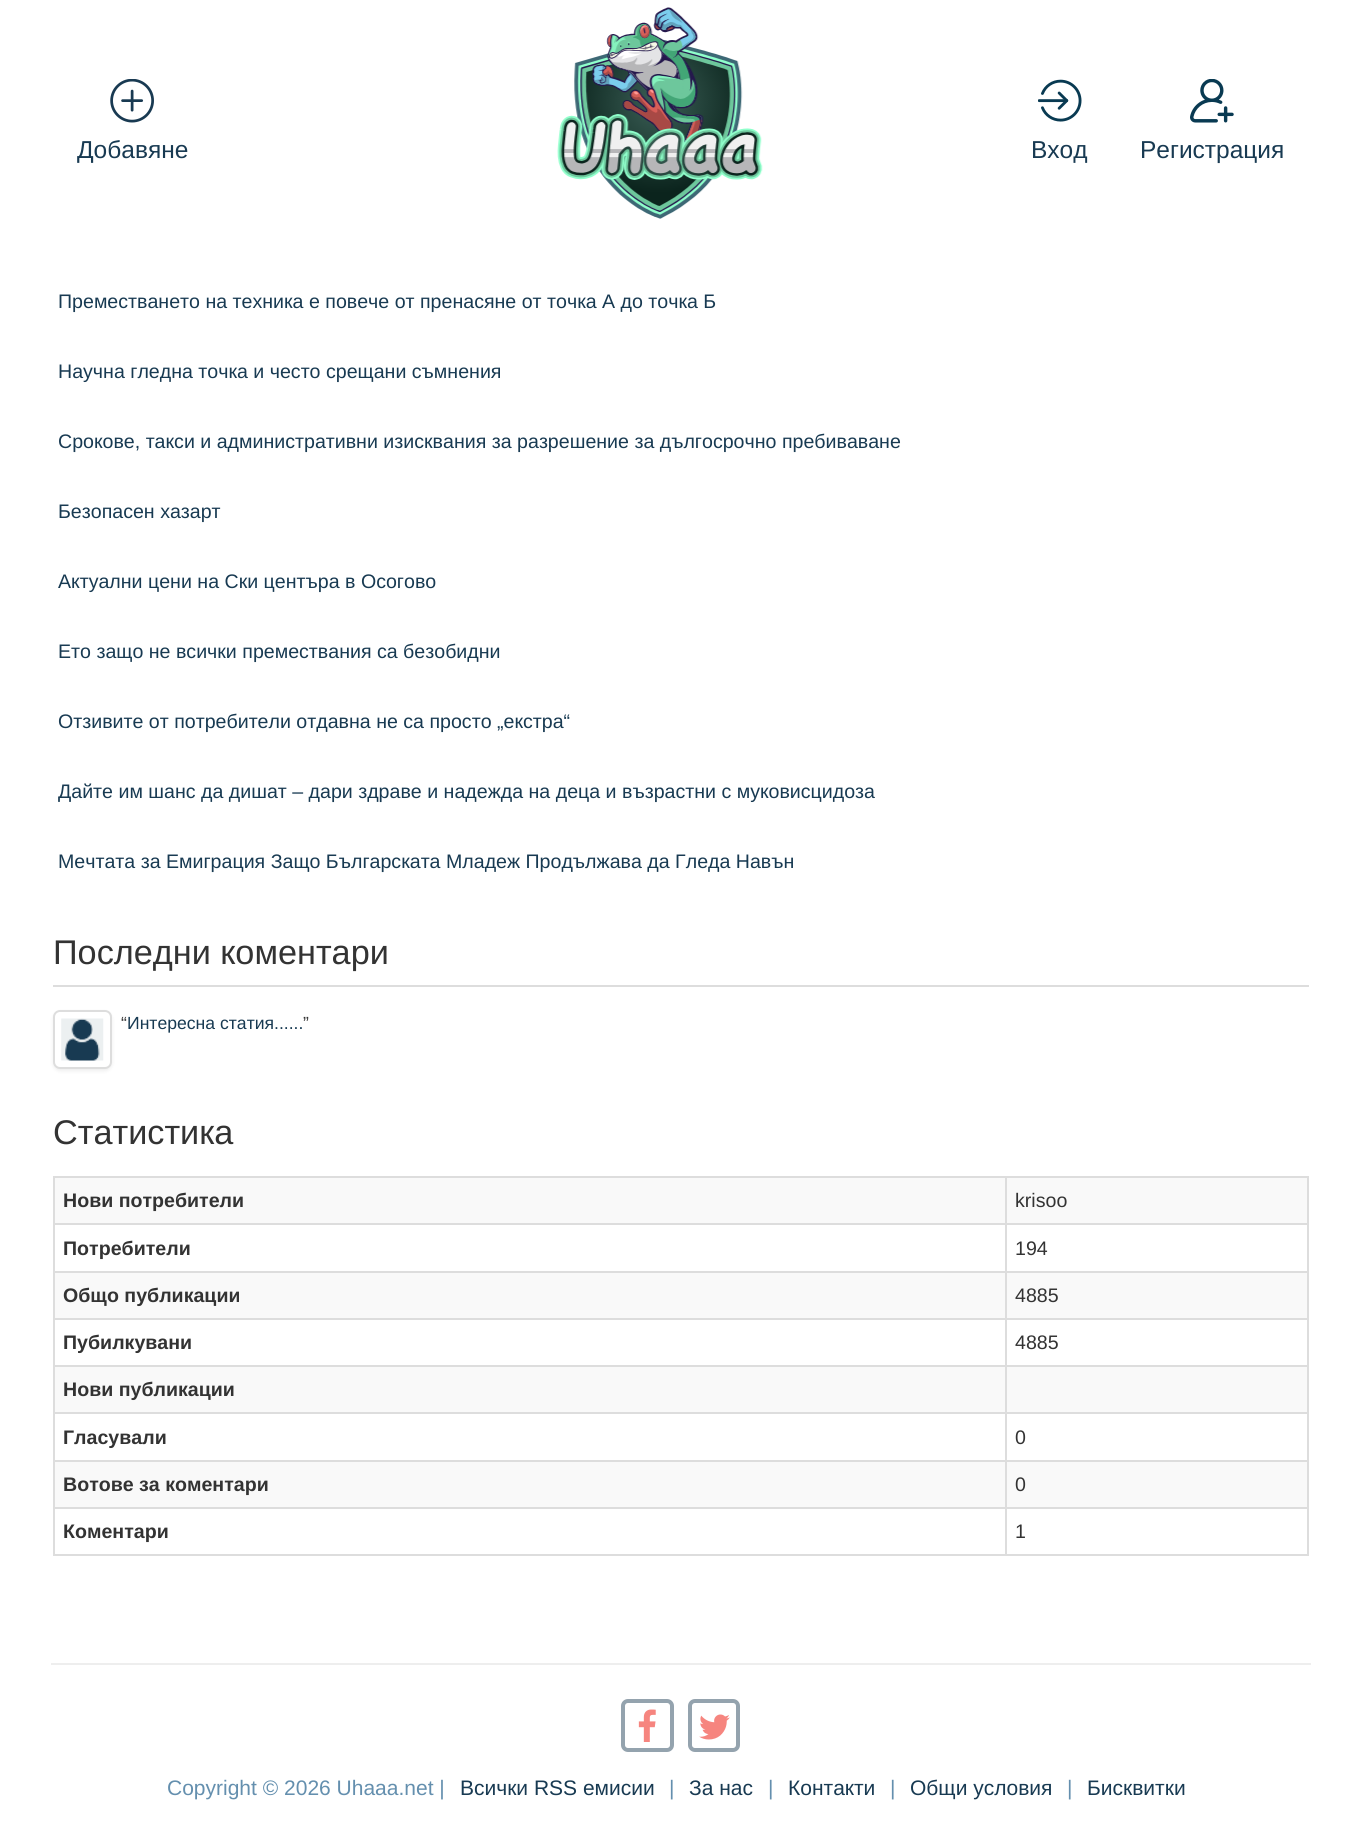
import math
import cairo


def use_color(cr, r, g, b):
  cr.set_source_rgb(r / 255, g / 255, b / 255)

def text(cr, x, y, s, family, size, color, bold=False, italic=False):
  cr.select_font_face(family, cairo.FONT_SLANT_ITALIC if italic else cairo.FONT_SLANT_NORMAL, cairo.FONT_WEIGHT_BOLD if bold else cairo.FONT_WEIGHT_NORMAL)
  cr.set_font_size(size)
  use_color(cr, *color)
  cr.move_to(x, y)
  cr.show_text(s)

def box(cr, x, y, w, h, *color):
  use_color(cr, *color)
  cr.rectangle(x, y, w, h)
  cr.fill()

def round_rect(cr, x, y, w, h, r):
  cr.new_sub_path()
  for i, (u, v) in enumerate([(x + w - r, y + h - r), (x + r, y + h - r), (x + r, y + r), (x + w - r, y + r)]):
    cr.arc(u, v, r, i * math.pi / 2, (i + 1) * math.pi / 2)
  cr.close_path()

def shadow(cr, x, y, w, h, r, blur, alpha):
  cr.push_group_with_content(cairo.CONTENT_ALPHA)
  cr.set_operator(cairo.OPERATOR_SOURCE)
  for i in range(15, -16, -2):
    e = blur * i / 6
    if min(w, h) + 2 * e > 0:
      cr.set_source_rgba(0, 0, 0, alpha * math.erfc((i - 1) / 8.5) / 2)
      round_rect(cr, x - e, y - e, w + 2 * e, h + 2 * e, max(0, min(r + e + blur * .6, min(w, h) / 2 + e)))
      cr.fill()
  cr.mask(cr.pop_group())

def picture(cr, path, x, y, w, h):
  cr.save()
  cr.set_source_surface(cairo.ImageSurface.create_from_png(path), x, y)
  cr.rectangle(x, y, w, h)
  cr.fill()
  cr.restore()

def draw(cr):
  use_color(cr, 255, 255, 255)
  cr.paint()
  picture(cr, "img_01.png", 557, 7, 206, 212)
  picture(cr, "img_02.png", 110, 79, 44, 44)
  picture(cr, "img_03.png", 1038, 79, 44, 43)
  picture(cr, "img_04.png", 1190, 79, 44, 44)
  box(cr, 53, 985, 1256, 2, 221, 221, 221)
  use_color(cr, 0, 0, 0)
  shadow(cr, 53, 1012, 59, 59, 7, 2, 0.07)
  use_color(cr, 255, 255, 255)
  round_rect(cr, 54, 1011, 57, 57, 6)
  cr.fill_preserve()
  use_color(cr, 221, 221, 221)
  cr.stroke()
  picture(cr, "img_05.png", 61, 1018, 43, 43)
  box(cr, 53, 1176, 1256, 2, 221, 221, 221)
  box(cr, 1307, 1176, 2, 380, 221, 221, 221)
  box(cr, 53, 1554, 1256, 2, 221, 221, 221)
  box(cr, 53, 1176, 2, 380, 221, 221, 221)
  box(cr, 55, 1178, 950, 45, 249, 249, 249)
  box(cr, 1007, 1178, 300, 45, 249, 249, 249)
  box(cr, 1005, 1223, 304, 2, 221, 221, 221)
  box(cr, 1005, 1271, 304, 2, 221, 221, 221)
  box(cr, 1005, 1318, 304, 2, 221, 221, 221)
  box(cr, 1005, 1365, 304, 2, 221, 221, 221)
  box(cr, 1005, 1412, 304, 2, 221, 221, 221)
  box(cr, 1005, 1460, 304, 2, 221, 221, 221)
  box(cr, 1005, 1507, 304, 2, 221, 221, 221)
  box(cr, 1005, 1507, 2, 49, 221, 221, 221)
  box(cr, 53, 1507, 953, 2, 221, 221, 221)
  box(cr, 1005, 1460, 2, 49, 221, 221, 221)
  box(cr, 53, 1460, 953, 2, 221, 221, 221)
  box(cr, 1005, 1412, 2, 49, 221, 221, 221)
  box(cr, 53, 1412, 953, 2, 221, 221, 221)
  box(cr, 1005, 1365, 2, 49, 221, 221, 221)
  box(cr, 53, 1365, 953, 2, 221, 221, 221)
  box(cr, 1005, 1318, 2, 49, 221, 221, 221)
  box(cr, 53, 1318, 953, 2, 221, 221, 221)
  box(cr, 1005, 1271, 2, 49, 221, 221, 221)
  box(cr, 53, 1271, 953, 2, 221, 221, 221)
  box(cr, 1005, 1223, 2, 49, 221, 221, 221)
  box(cr, 53, 1223, 953, 2, 221, 221, 221)
  box(cr, 1005, 1176, 2, 49, 221, 221, 221)
  box(cr, 55, 1273, 950, 45, 249, 249, 249)
  box(cr, 1007, 1273, 300, 45, 249, 249, 249)
  box(cr, 55, 1367, 950, 45, 249, 249, 249)
  box(cr, 1007, 1367, 300, 45, 249, 249, 249)
  box(cr, 55, 1462, 950, 45, 249, 249, 249)
  box(cr, 1007, 1462, 300, 45, 249, 249, 249)
  box(cr, 51, 1663, 1260, 2, 238, 238, 238)
  round_rect(cr, 623, 1701, 49, 49, 5)
  use_color(cr, 148, 163, 174)
  cr.set_line_width(4)
  cr.stroke()
  picture(cr, "img_06.png", 638, 1709, 18, 33)
  round_rect(cr, 690, 1701, 48, 49, 5)
  cr.stroke()
  picture(cr, "img_07.png", 699, 1714, 31, 26)
  text(cr, 77, 158, "Добавяне", "Liberation Sans", 24.5, (24, 58, 82))
  text(cr, 1031, 158, "Вход", "Liberation Sans", 24.5, (24, 58, 82))
  text(cr, 1140, 158, "Регистрация", "Liberation Sans", 24.5, (24, 58, 82))
  text(cr, 58, 308, "Преместването на техника е повече от пренасяне от точка А до точка Б", "Liberation Sans", 19.6, (24, 58, 82))
  text(cr, 58, 378, "Научна гледна точка и често срещани съмнения", "Liberation Sans", 19.6, (24, 58, 82))
  text(cr, 58, 448, "Срокове, такси и административни изисквания за разрешение за дългосрочно пребиваване", "Liberation Sans", 19.6, (24, 58, 82))
  text(cr, 58, 518, "Безопасен хазарт", "Liberation Sans", 19.6, (24, 58, 82))
  text(cr, 58, 588, "Актуални цени на Ски центъра в Осогово", "Liberation Sans", 19.6, (24, 58, 82))
  text(cr, 58, 658, "Ето защо не всички премествания са безобидни", "Liberation Sans", 19.6, (24, 58, 82))
  text(cr, 58, 728, "Отзивите от потребители отдавна не са просто „екстра“", "Liberation Sans", 19.6, (24, 58, 82))
  text(cr, 58, 798, "Дайте им шанс да дишат – дари здраве и надежда на деца и възрастни с муковисцидоза", "Liberation Sans", 19.6, (24, 58, 82))
  text(cr, 58, 868, "Мечтата за Емиграция Защо Българската Младеж Продължава да Гледа Навън", "Liberation Sans", 19.6, (24, 58, 82))
  text(cr, 53, 964, "Последни коментари", "Liberation Sans", 34.25, (51, 51, 51))
  text(cr, 121, 1029, "“", "Liberation Sans", 17.6, (51, 51, 51))
  text(cr, 127, 1029, "Интересна статия......", "Liberation Sans", 17.6, (24, 58, 82))
  text(cr, 303, 1029, "”", "Liberation Sans", 17.6, (51, 51, 51))
  text(cr, 53, 1144, "Статистика", "Liberation Sans", 34.25, (51, 51, 51))
  text(cr, 63, 1207, "Нови потребители", "Liberation Sans", 19.6, (51, 51, 51), bold=True)
  text(cr, 1015, 1207, "krisoo", "Liberation Sans", 19.6, (51, 51, 51))
  text(cr, 63, 1255, "Потребители", "Liberation Sans", 19.6, (51, 51, 51), bold=True)
  text(cr, 1015, 1255, "194", "Liberation Sans", 19.6, (51, 51, 51))
  text(cr, 63, 1302, "Общо публикации", "Liberation Sans", 19.6, (51, 51, 51), bold=True)
  text(cr, 1015, 1302, "4885", "Liberation Sans", 19.6, (51, 51, 51))
  text(cr, 63, 1349, "Пубилкувани", "Liberation Sans", 19.6, (51, 51, 51), bold=True)
  text(cr, 1015, 1349, "4885", "Liberation Sans", 19.6, (51, 51, 51))
  text(cr, 63, 1396, "Нови публикации", "Liberation Sans", 19.6, (51, 51, 51), bold=True)
  text(cr, 63, 1444, "Гласували", "Liberation Sans", 19.6, (51, 51, 51), bold=True)
  text(cr, 1015, 1444, "0", "Liberation Sans", 19.6, (51, 51, 51))
  text(cr, 63, 1491, "Вотове за коментари", "Liberation Sans", 19.6, (51, 51, 51), bold=True)
  text(cr, 1015, 1491, "0", "Liberation Sans", 19.6, (51, 51, 51))
  text(cr, 63, 1538, "Коментари", "Liberation Sans", 19.6, (51, 51, 51), bold=True)
  text(cr, 1015, 1538, "1", "Liberation Sans", 19.6, (51, 51, 51))
  text(cr, 167, 1795, "Copyright © 2026 Uhaaa.net |", "Liberation Sans", 21, (100, 143, 174))
  text(cr, 460, 1795, "Всички RSS емисии", "Liberation Sans", 21, (24, 58, 82))
  text(cr, 669, 1795, "|", "Liberation Sans", 21, (100, 143, 174))
  text(cr, 689, 1795, "За нас", "Liberation Sans", 21, (24, 58, 82))
  text(cr, 768, 1795, "|", "Liberation Sans", 21, (100, 143, 174))
  text(cr, 788, 1795, "Контакти", "Liberation Sans", 21, (24, 58, 82))
  text(cr, 890, 1795, "|", "Liberation Sans", 21, (100, 143, 174))
  text(cr, 910, 1795, "Общи условия", "Liberation Sans", 21, (24, 58, 82))
  text(cr, 1067, 1795, "|", "Liberation Sans", 21, (100, 143, 174))
  text(cr, 1087, 1795, "Бисквитки", "Liberation Sans", 21, (24, 58, 82))


surface = cairo.ImageSurface(cairo.FORMAT_RGB24, 1360, 1838)
cr = cairo.Context(surface)
options = cairo.FontOptions()
options.set_hint_metrics(cairo.HINT_METRICS_OFF)
options.set_hint_style(cairo.HINT_STYLE_NONE)
cr.set_font_options(options)
cr.set_miter_limit(4)
draw(cr)
surface.write_to_png("out.png")
